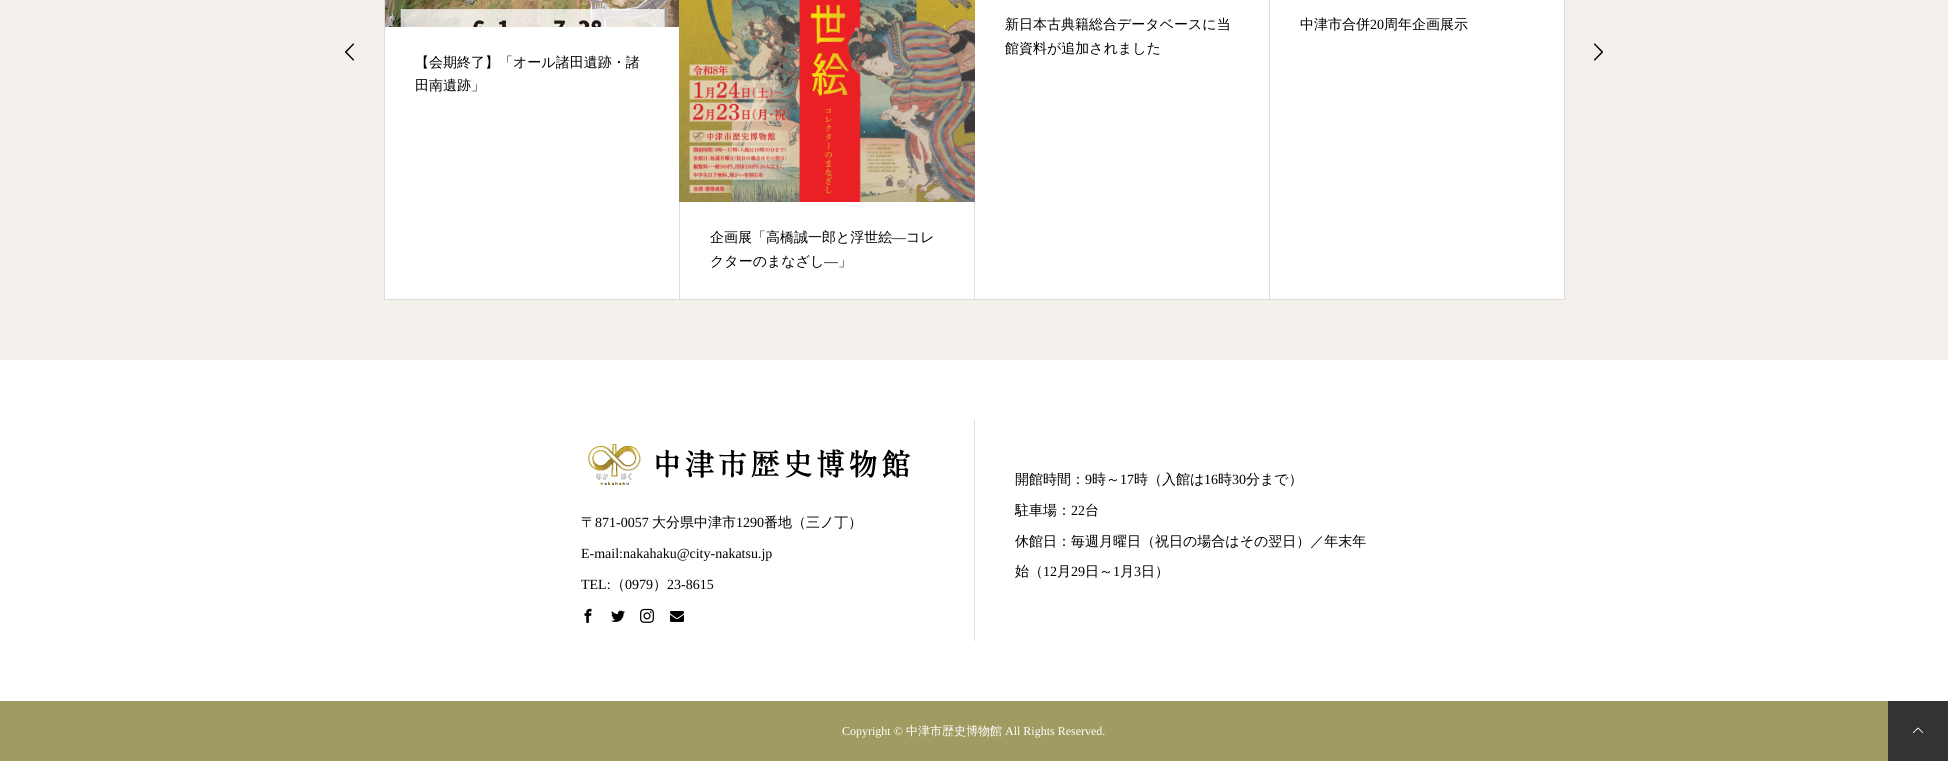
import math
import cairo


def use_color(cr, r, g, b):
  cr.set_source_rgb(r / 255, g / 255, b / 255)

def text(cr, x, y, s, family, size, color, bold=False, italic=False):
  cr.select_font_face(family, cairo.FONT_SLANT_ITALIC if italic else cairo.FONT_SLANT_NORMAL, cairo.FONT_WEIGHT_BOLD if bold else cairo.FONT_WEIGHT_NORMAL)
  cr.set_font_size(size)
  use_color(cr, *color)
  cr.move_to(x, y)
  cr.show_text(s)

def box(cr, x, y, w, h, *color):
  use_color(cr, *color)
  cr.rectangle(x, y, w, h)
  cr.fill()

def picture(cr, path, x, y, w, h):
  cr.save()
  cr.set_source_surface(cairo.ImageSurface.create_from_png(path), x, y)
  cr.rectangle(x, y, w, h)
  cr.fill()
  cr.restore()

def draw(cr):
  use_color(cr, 255, 255, 255)
  cr.paint()
  box(cr, 0, 0, 1948, 360, 244, 241, 237)
  picture(cr, "img_01.png", 345, 43, 9, 18)
  box(cr, 1564, 0, 1, 300, 221, 221, 221)
  box(cr, 384, 299, 1181, 1, 221, 221, 221)
  box(cr, 384, 0, 1, 300, 221, 221, 221)
  box(cr, 975, 0, 294, 299, 255, 255, 255)
  box(cr, 1269, 0, 1, 299, 221, 221, 221)
  box(cr, 1270, 0, 294, 299, 255, 255, 255)
  box(cr, 385, 27, 294, 272, 255, 255, 255)
  box(cr, 679, 202, 1, 97, 221, 221, 221)
  picture(cr, "img_02.png", 385, 0, 294, 27)
  box(cr, 680, 202, 294, 97, 255, 255, 255)
  box(cr, 974, 202, 1, 97, 221, 221, 221)
  picture(cr, "img_03.png", 679, 0, 296, 202)
  picture(cr, "img_04.png", 1594, 43, 9, 18)
  picture(cr, "img_05.png", 588, 444, 322, 41)
  picture(cr, "img_06.png", 584, 608, 8, 15)
  picture(cr, "img_07.png", 611, 610, 14, 12)
  picture(cr, "img_08.png", 640, 608, 14, 15)
  picture(cr, "img_09.png", 670, 611, 14, 11)
  box(cr, 974, 420, 1, 221, 221, 221, 221)
  box(cr, 0, 701, 1888, 60, 160, 155, 97)
  box(cr, 1888, 701, 60, 60, 51, 51, 51)
  picture(cr, "img_10.png", 1912, 727, 12, 6)
  text(cr, 1005, 29, "新日本古典籍総合データベースに当", "WenQuanYi Zen Hei Medium", 14, (0, 0, 0))
  text(cr, 1005, 53, "館資料が追加されました", "WenQuanYi Zen Hei Medium", 14, (0, 0, 0))
  text(cr, 1300, 29, "中津市合併", "WenQuanYi Zen Hei Medium", 14, (0, 0, 0))
  text(cr, 1370, 29, "20", "Liberation Serif", 14, (0, 0, 0))
  text(cr, 1384, 29, "周年企画展示", "WenQuanYi Zen Hei Medium", 14, (0, 0, 0))
  text(cr, 415, 67, "【会期終了】「オール諸田遺跡・諸", "WenQuanYi Zen Hei Medium", 14, (0, 0, 0))
  text(cr, 415, 90, "田南遺跡」", "WenQuanYi Zen Hei Medium", 14, (0, 0, 0))
  text(cr, 710, 242, "企画展「高橋誠一郎と浮世絵", "WenQuanYi Zen Hei Medium", 14, (0, 0, 0))
  text(cr, 892, 242, "―", "Liberation Serif", 14, (0, 0, 0))
  text(cr, 906, 242, "コレ", "WenQuanYi Zen Hei Medium", 14, (0, 0, 0))
  text(cr, 710, 266, "クターのまなざし", "WenQuanYi Zen Hei Medium", 14, (0, 0, 0))
  text(cr, 824, 266, "―", "Liberation Serif", 14, (0, 0, 0))
  text(cr, 838, 266, "」", "WenQuanYi Zen Hei Medium", 14, (0, 0, 0))
  text(cr, 581, 527, "〒", "WenQuanYi Zen Hei Medium", 14, (0, 0, 0))
  text(cr, 595, 527, "871-0057", "Liberation Serif", 14, (0, 0, 0))
  text(cr, 652, 527, "大分県中津市", "WenQuanYi Zen Hei Medium", 14, (0, 0, 0))
  text(cr, 736, 527, "1290", "Liberation Serif", 14, (0, 0, 0))
  text(cr, 764, 527, "番地（三ノ丁）", "WenQuanYi Zen Hei Medium", 14, (0, 0, 0))
  text(cr, 581, 558, "E-mail:nakahaku@city-nakatsu.jp", "Liberation Serif", 14, (0, 0, 0))
  text(cr, 581, 589, "TEL:", "Liberation Serif", 14, (0, 0, 0))
  text(cr, 611, 589, "（", "WenQuanYi Zen Hei Medium", 14, (0, 0, 0))
  text(cr, 625, 589, "0979", "Liberation Serif", 14, (0, 0, 0))
  text(cr, 653, 589, "）", "WenQuanYi Zen Hei Medium", 14, (0, 0, 0))
  text(cr, 667, 589, "23-8615", "Liberation Serif", 14, (0, 0, 0))
  text(cr, 1015, 484, "開館時間：", "WenQuanYi Zen Hei Medium", 14, (0, 0, 0))
  text(cr, 1085, 484, "9", "Liberation Serif", 14, (0, 0, 0))
  text(cr, 1092, 484, "時～", "WenQuanYi Zen Hei Medium", 14, (0, 0, 0))
  text(cr, 1120, 484, "17", "Liberation Serif", 14, (0, 0, 0))
  text(cr, 1134, 484, "時（入館は", "WenQuanYi Zen Hei Medium", 14, (0, 0, 0))
  text(cr, 1204, 484, "16", "Liberation Serif", 14, (0, 0, 0))
  text(cr, 1218, 484, "時", "WenQuanYi Zen Hei Medium", 14, (0, 0, 0))
  text(cr, 1232, 484, "30", "Liberation Serif", 14, (0, 0, 0))
  text(cr, 1246, 484, "分まで）", "WenQuanYi Zen Hei Medium", 14, (0, 0, 0))
  text(cr, 1015, 515, "駐車場：", "WenQuanYi Zen Hei Medium", 14, (0, 0, 0))
  text(cr, 1071, 515, "22", "Liberation Serif", 14, (0, 0, 0))
  text(cr, 1085, 515, "台", "WenQuanYi Zen Hei Medium", 14, (0, 0, 0))
  text(cr, 1015, 546, "休館日：毎週月曜日（祝日の場合はその翌日）／年末年", "WenQuanYi Zen Hei Medium", 14, (0, 0, 0))
  text(cr, 1015, 576, "始（", "WenQuanYi Zen Hei Medium", 14, (0, 0, 0))
  text(cr, 1043, 576, "12", "Liberation Serif", 14, (0, 0, 0))
  text(cr, 1057, 576, "月", "WenQuanYi Zen Hei Medium", 14, (0, 0, 0))
  text(cr, 1071, 576, "29", "Liberation Serif", 14, (0, 0, 0))
  text(cr, 1085, 576, "日～", "WenQuanYi Zen Hei Medium", 14, (0, 0, 0))
  text(cr, 1113, 576, "1", "Liberation Serif", 14, (0, 0, 0))
  text(cr, 1120, 576, "月", "WenQuanYi Zen Hei Medium", 14, (0, 0, 0))
  text(cr, 1134, 576, "3", "Liberation Serif", 14, (0, 0, 0))
  text(cr, 1141, 576, "日）", "WenQuanYi Zen Hei Medium", 14, (0, 0, 0))
  text(cr, 842, 735, "Copyright ©", "Liberation Serif", 12, (255, 255, 255))
  text(cr, 906, 735, "中津市歴史博物館", "WenQuanYi Zen Hei Medium", 12, (255, 255, 255))
  text(cr, 1005, 735, "All Rights Reserved.", "Liberation Serif", 12, (255, 255, 255))


surface = cairo.ImageSurface(cairo.FORMAT_RGB24, 1948, 761)
cr = cairo.Context(surface)
options = cairo.FontOptions()
options.set_hint_metrics(cairo.HINT_METRICS_OFF)
options.set_hint_style(cairo.HINT_STYLE_NONE)
cr.set_font_options(options)
cr.set_miter_limit(4)
draw(cr)
surface.write_to_png("out.png")
